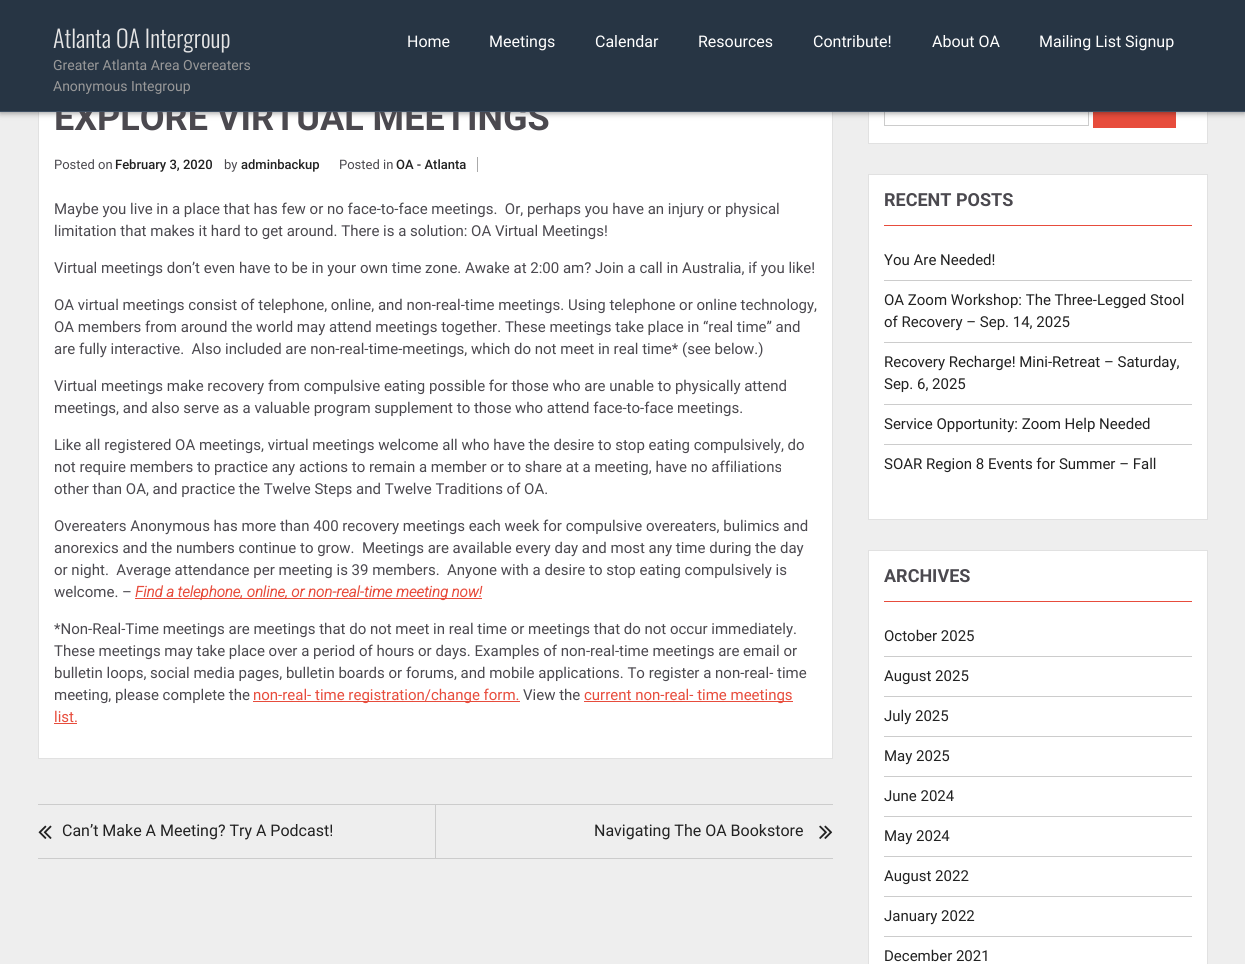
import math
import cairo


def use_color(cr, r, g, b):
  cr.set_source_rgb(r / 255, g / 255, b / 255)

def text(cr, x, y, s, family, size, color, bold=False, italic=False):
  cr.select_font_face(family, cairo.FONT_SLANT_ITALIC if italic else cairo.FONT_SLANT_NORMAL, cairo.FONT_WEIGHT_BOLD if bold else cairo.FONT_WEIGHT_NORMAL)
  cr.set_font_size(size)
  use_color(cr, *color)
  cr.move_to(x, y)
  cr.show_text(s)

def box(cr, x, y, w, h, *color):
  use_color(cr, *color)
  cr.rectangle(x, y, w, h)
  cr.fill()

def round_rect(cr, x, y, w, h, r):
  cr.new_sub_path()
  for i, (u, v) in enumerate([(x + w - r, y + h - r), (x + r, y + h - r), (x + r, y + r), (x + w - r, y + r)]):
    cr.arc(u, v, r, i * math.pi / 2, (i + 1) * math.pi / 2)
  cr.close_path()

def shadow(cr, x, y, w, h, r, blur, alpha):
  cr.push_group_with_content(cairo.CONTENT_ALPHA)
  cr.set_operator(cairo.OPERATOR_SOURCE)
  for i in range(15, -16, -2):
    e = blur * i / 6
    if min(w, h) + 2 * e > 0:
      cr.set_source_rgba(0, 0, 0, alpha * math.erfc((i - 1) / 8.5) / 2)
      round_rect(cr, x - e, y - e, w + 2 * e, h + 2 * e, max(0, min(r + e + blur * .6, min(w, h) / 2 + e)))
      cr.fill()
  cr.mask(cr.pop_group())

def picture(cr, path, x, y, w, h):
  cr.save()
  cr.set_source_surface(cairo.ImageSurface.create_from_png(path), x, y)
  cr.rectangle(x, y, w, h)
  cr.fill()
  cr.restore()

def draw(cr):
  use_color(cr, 238, 238, 238)
  cr.paint()
  box(cr, 39, 112, 793, 646, 255, 255, 255)
  cr.rectangle(38.5, 73.5, 794, 685)
  use_color(cr, 225, 225, 225)
  cr.set_line_width(1)
  cr.stroke()
  box(cr, 869, 112, 338, 31, 255, 255, 255)
  cr.rectangle(868.5, 73.5, 339, 70)
  use_color(cr, 225, 225, 225)
  cr.stroke()
  cr.rectangle(884.5, 89.5, 204, 36)
  use_color(cr, 204, 204, 204)
  cr.stroke()
  box(cr, 1093, 112, 83, 16, 231, 76, 60)
  use_color(cr, 0, 0, 0)
  shadow(cr, 0, 1, 1245, 112, 0, 3, 0.4)
  box(cr, 477, 157, 1, 15, 170, 170, 170)
  box(cr, 135, 598, 347, 1, 231, 76, 60)
  box(cr, 253, 701, 267, 1, 231, 76, 60)
  box(cr, 584, 701, 209, 1, 231, 76, 60)
  box(cr, 54, 723, 23, 1, 231, 76, 60)
  box(cr, 38, 804, 795, 1, 204, 204, 204)
  box(cr, 38, 858, 795, 1, 204, 204, 204)
  picture(cr, "img_01.png", 38, 825, 14, 14)
  box(cr, 435, 805, 1, 53, 204, 204, 204)
  picture(cr, "img_02.png", 819, 825, 14, 14)
  use_color(cr, 255, 255, 255)
  cr.rectangle(868.5, 174.5, 339, 345)
  cr.fill_preserve()
  use_color(cr, 225, 225, 225)
  cr.stroke()
  box(cr, 884, 225, 308, 1, 231, 76, 60)
  box(cr, 884, 280, 308, 1, 204, 204, 204)
  box(cr, 884, 342, 308, 1, 204, 204, 204)
  box(cr, 884, 404, 308, 1, 204, 204, 204)
  box(cr, 884, 444, 308, 1, 204, 204, 204)
  use_color(cr, 255, 255, 255)
  cr.rectangle(868.5, 550.5, 339, 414)
  cr.fill_preserve()
  use_color(cr, 225, 225, 225)
  cr.stroke()
  box(cr, 884, 601, 308, 1, 231, 76, 60)
  box(cr, 884, 656, 308, 1, 204, 204, 204)
  box(cr, 884, 696, 308, 1, 204, 204, 204)
  box(cr, 884, 736, 308, 1, 204, 204, 204)
  box(cr, 884, 776, 308, 1, 204, 204, 204)
  box(cr, 884, 816, 308, 1, 204, 204, 204)
  box(cr, 884, 856, 308, 1, 204, 204, 204)
  box(cr, 884, 896, 308, 1, 204, 204, 204)
  box(cr, 884, 936, 308, 1, 204, 204, 204)
  text(cr, 54, 130, "EXPLORE VIRTUAL MEETINGS", "Roboto", 36, (75, 73, 79), bold=True)
  box(cr, 0, 0, 1245, 111, 39, 53, 68)
  text(cr, 1039, 47, "Mailing List Signup", "Roboto", 16, (255, 255, 255))
  text(cr, 932, 47, "About OA", "Roboto", 16, (255, 255, 255))
  text(cr, 813, 47, "Contribute!", "Roboto", 16, (255, 255, 255))
  text(cr, 698, 47, "Resources", "Roboto", 16, (255, 255, 255))
  text(cr, 595, 47, "Calendar", "Roboto", 16, (255, 255, 255))
  text(cr, 489, 47, "Meetings", "Roboto", 16, (255, 255, 255))
  text(cr, 407, 47, "Home", "Roboto", 16, (255, 255, 255))
  text(cr, 53, 91, "Anonymous Integroup", "Roboto", 14, (153, 153, 153))
  text(cr, 53, 70, "Greater Atlanta Area Overeaters", "Roboto", 14, (153, 153, 153))
  text(cr, 53, 48, "Atlanta OA Intergroup", "Oswald Light", 24, (229, 229, 229))
  box(cr, 0, 111, 1245, 1, 61, 78, 98)
  text(cr, 54, 169, "Posted on", "Roboto", 13, (75, 73, 79))
  text(cr, 115, 169, "February 3, 2020", "Roboto Medium", 13, (33, 33, 33))
  text(cr, 224, 169, "by", "Roboto", 13, (75, 73, 79))
  text(cr, 241, 169, "adminbackup", "Roboto Medium", 13, (33, 33, 33))
  text(cr, 339, 169, "Posted in", "Roboto", 13, (75, 73, 79))
  text(cr, 396, 169, "OA - Atlanta", "Roboto Medium", 13, (33, 33, 33))
  text(cr, 54, 214, "Maybe you live in a place that has few or no face-to-face meetings.  Or, perhaps you have an injury or physical", "Roboto", 15, (75, 73, 79))
  text(cr, 54, 236, "limitation that makes it hard to get around. There is a solution: OA Virtual Meetings!", "Roboto", 15, (75, 73, 79))
  text(cr, 54, 273, "Virtual meetings don’t even have to be in your own time zone. Awake at 2:00 am? Join a call in Australia, if you like!", "Roboto", 15, (75, 73, 79))
  text(cr, 54, 310, "OA virtual meetings consist of telephone, online, and non-real-time meetings. Using telephone or online technology,", "Roboto", 15, (75, 73, 79))
  text(cr, 54, 332, "OA members from around the world may attend meetings together. These meetings take place in “real time” and", "Roboto", 15, (75, 73, 79))
  text(cr, 54, 354, "are fully interactive.  Also included are non-real-time-meetings, which do not meet in real time* (see below.)", "Roboto", 15, (75, 73, 79))
  text(cr, 54, 391, "Virtual meetings make recovery from compulsive eating possible for those who are unable to physically attend", "Roboto", 15, (75, 73, 79))
  text(cr, 54, 413, "meetings, and also serve as a valuable program supplement to those who attend face-to-face meetings.", "Roboto", 15, (75, 73, 79))
  text(cr, 54, 450, "Like all registered OA meetings, virtual meetings welcome all who have the desire to stop eating compulsively, do", "Roboto", 15, (75, 73, 79))
  text(cr, 54, 472, "not require members to practice any actions to remain a member or to share at a meeting, have no affiliations", "Roboto", 15, (75, 73, 79))
  text(cr, 54, 494, "other than OA, and practice the Twelve Steps and Twelve Traditions of OA.", "Roboto", 15, (75, 73, 79))
  text(cr, 54, 531, "Overeaters Anonymous has more than 400 recovery meetings each week for compulsive overeaters, bulimics and", "Roboto", 15, (75, 73, 79))
  text(cr, 54, 553, "anorexics and the numbers continue to grow.  Meetings are available every day and most any time during the day", "Roboto", 15, (75, 73, 79))
  text(cr, 54, 575, "or night.  Average attendance per meeting is 39 members.  Anyone with a desire to stop eating compulsively is", "Roboto", 15, (75, 73, 79))
  text(cr, 54, 597, "welcome. –", "Roboto", 15, (75, 73, 79))
  text(cr, 135, 597, "Find a telephone, online, or non-real-time meeting now!", "Roboto", 15, (231, 76, 60), bold=True, italic=True)
  text(cr, 54, 634, "*Non-Real-Time meetings are meetings that do not meet in real time or meetings that do not occur immediately.", "Roboto", 15, (75, 73, 79))
  text(cr, 54, 656, "These meetings may take place over a period of hours or days. Examples of non-real-time meetings are email or", "Roboto", 15, (75, 73, 79))
  text(cr, 54, 678, "bulletin loops, social media pages, bulletin boards or forums, and mobile applications. To register a non-real- time", "Roboto", 15, (75, 73, 79))
  text(cr, 54, 700, "meeting, please complete the", "Roboto", 15, (75, 73, 79))
  text(cr, 253, 700, "non-real- time registration/change form.", "Roboto", 15, (231, 76, 60))
  text(cr, 523, 700, "View the", "Roboto", 15, (75, 73, 79))
  text(cr, 584, 700, "current non-real- time meetings", "Roboto", 15, (231, 76, 60))
  text(cr, 54, 722, "list.", "Roboto", 15, (231, 76, 60))
  text(cr, 62, 836, "Can’t Make A Meeting? Try A Podcast!", "Roboto", 16, (33, 33, 33))
  text(cr, 594, 836, "Navigating The OA Bookstore", "Roboto", 16, (33, 33, 33))
  text(cr, 884, 206, "RECENT POSTS", "Roboto", 18, (75, 73, 79), bold=True)
  text(cr, 884, 265, "You Are Needed!", "Roboto", 15, (33, 33, 33))
  text(cr, 884, 305, "OA Zoom Workshop: The Three-Legged Stool", "Roboto", 15, (33, 33, 33))
  text(cr, 884, 327, "of Recovery – Sep. 14, 2025", "Roboto", 15, (33, 33, 33))
  text(cr, 884, 367, "Recovery Recharge! Mini-Retreat – Saturday,", "Roboto", 15, (33, 33, 33))
  text(cr, 884, 389, "Sep. 6, 2025", "Roboto", 15, (33, 33, 33))
  text(cr, 884, 429, "Service Opportunity: Zoom Help Needed", "Roboto", 15, (33, 33, 33))
  text(cr, 884, 469, "SOAR Region 8 Events for Summer – Fall", "Roboto", 15, (33, 33, 33))
  text(cr, 884, 582, "ARCHIVES", "Roboto", 18, (75, 73, 79), bold=True)
  text(cr, 884, 641, "October 2025", "Roboto", 15, (33, 33, 33))
  text(cr, 884, 681, "August 2025", "Roboto", 15, (33, 33, 33))
  text(cr, 884, 721, "July 2025", "Roboto", 15, (33, 33, 33))
  text(cr, 884, 761, "May 2025", "Roboto", 15, (33, 33, 33))
  text(cr, 884, 801, "June 2024", "Roboto", 15, (33, 33, 33))
  text(cr, 884, 841, "May 2024", "Roboto", 15, (33, 33, 33))
  text(cr, 884, 881, "August 2022", "Roboto", 15, (33, 33, 33))
  text(cr, 884, 921, "January 2022", "Roboto", 15, (33, 33, 33))
  text(cr, 884, 961, "December 2021", "Roboto", 15, (33, 33, 33))


surface = cairo.ImageSurface(cairo.FORMAT_RGB24, 1245, 964)
cr = cairo.Context(surface)
options = cairo.FontOptions()
options.set_hint_metrics(cairo.HINT_METRICS_OFF)
options.set_hint_style(cairo.HINT_STYLE_NONE)
cr.set_font_options(options)
cr.set_miter_limit(4)
draw(cr)
surface.write_to_png("out.png")
